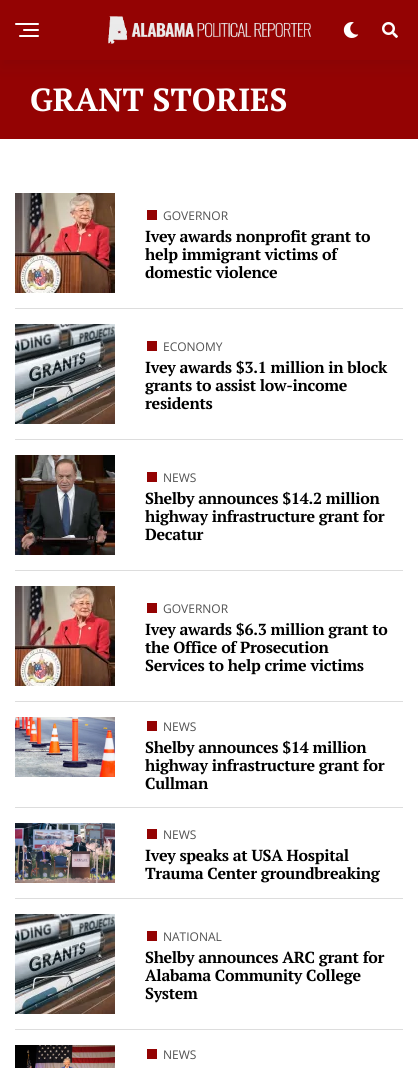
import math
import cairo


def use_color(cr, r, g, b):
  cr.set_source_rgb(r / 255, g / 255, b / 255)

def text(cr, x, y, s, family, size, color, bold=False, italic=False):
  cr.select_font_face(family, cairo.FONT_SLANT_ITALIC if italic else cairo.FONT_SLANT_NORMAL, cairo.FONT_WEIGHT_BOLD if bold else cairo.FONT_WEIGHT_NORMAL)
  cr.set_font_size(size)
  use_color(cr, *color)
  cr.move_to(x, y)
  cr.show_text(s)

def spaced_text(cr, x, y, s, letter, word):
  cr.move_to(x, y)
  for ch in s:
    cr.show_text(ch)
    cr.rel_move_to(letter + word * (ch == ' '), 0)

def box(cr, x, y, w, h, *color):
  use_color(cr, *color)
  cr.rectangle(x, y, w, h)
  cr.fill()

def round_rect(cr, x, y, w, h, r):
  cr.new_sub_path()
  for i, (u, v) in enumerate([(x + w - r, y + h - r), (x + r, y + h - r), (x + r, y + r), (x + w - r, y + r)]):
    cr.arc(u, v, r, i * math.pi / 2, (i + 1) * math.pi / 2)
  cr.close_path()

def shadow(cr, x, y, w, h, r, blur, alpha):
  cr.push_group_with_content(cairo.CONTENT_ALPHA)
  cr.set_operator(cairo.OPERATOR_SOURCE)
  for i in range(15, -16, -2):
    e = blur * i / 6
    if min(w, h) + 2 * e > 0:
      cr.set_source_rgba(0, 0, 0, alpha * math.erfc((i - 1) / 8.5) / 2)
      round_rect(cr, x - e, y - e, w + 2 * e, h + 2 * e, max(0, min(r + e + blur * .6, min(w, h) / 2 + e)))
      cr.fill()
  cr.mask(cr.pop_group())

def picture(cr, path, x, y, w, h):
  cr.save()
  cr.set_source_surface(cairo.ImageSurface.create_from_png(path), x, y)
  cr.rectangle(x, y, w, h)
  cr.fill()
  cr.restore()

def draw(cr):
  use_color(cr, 255, 255, 255)
  cr.paint()
  box(cr, 0, 60, 418, 79, 148, 3, 3)
  use_color(cr, 21, 21, 30)
  shadow(cr, 0, 8, 418, 60, 0, 8, 0.08)
  box(cr, 0, 0, 418, 60, 148, 3, 3)
  use_color(cr, 255, 255, 255)
  round_rect(cr, 15, 23, 24, 2, 1)
  cr.fill()
  round_rect(cr, 23, 29, 16, 2, 1)
  cr.fill()
  round_rect(cr, 19, 35, 20, 2, 1)
  cr.fill()
  picture(cr, "img_01.png", 108, 16, 203, 28)
  picture(cr, "img_02.png", 343, 22, 16, 16)
  picture(cr, "img_03.png", 382, 22, 16, 16)
  picture(cr, "img_04.png", 15, 193, 100, 100)
  box(cr, 147, 210, 10, 10, 148, 3, 3)
  box(cr, 15, 308, 388, 1, 221, 221, 221)
  picture(cr, "img_05.png", 15, 324, 100, 100)
  box(cr, 147, 341, 10, 10, 148, 3, 3)
  box(cr, 15, 439, 388, 1, 221, 221, 221)
  picture(cr, "img_06.png", 15, 455, 100, 100)
  box(cr, 147, 472, 10, 10, 148, 3, 3)
  box(cr, 15, 570, 388, 1, 221, 221, 221)
  picture(cr, "img_04.png", 15, 586, 100, 100)
  box(cr, 147, 603, 10, 10, 148, 3, 3)
  box(cr, 15, 701, 388, 1, 221, 221, 221)
  picture(cr, "img_07.png", 15, 717, 100, 60)
  box(cr, 147, 721, 10, 10, 148, 3, 3)
  box(cr, 15, 807, 388, 1, 221, 221, 221)
  picture(cr, "img_08.png", 15, 823, 100, 60)
  box(cr, 147, 829, 10, 10, 148, 3, 3)
  box(cr, 15, 898, 388, 1, 221, 221, 221)
  picture(cr, "img_05.png", 15, 914, 100, 100)
  box(cr, 147, 931, 10, 10, 148, 3, 3)
  box(cr, 15, 1029, 388, 1, 221, 221, 221)
  picture(cr, "img_09.png", 15, 1045, 100, 23)
  box(cr, 147, 1049, 10, 10, 148, 3, 3)
  text(cr, 30, 111, "GRANT STORIES", "PT Serif", 32, (255, 255, 255), bold=True)
  text(cr, 163, 220, "GOVERNOR", "Open Sans", 12, (81, 81, 81))
  cr.select_font_face("PT Serif", cairo.FONT_SLANT_NORMAL, cairo.FONT_WEIGHT_BOLD)
  cr.set_font_size(16)
  use_color(cr, 0, 0, 0)
  spaced_text(cr, 145, 242, "Ivey awards nonprofit grant to", -0.3, 0)
  spaced_text(cr, 145, 260, "help immigrant victims of", -0.3, 0)
  spaced_text(cr, 145, 278, "domestic violence", -0.3, 0)
  text(cr, 163, 351, "ECONOMY", "Open Sans", 12, (81, 81, 81))
  cr.select_font_face("PT Serif", cairo.FONT_SLANT_NORMAL, cairo.FONT_WEIGHT_BOLD)
  cr.set_font_size(16)
  use_color(cr, 0, 0, 0)
  spaced_text(cr, 145, 373, "Ivey awards $3.1 million in block", -0.3, 0)
  spaced_text(cr, 145, 391, "grants to assist low-income", -0.3, 0)
  spaced_text(cr, 145, 409, "residents", -0.3, 0)
  text(cr, 163, 482, "NEWS", "Open Sans", 12, (81, 81, 81))
  cr.select_font_face("PT Serif", cairo.FONT_SLANT_NORMAL, cairo.FONT_WEIGHT_BOLD)
  cr.set_font_size(16)
  use_color(cr, 0, 0, 0)
  spaced_text(cr, 145, 504, "Shelby announces $14.2 million", -0.3, 0)
  spaced_text(cr, 145, 522, "highway infrastructure grant for", -0.3, 0)
  spaced_text(cr, 145, 540, "Decatur", -0.3, 0)
  text(cr, 163, 613, "GOVERNOR", "Open Sans", 12, (81, 81, 81))
  cr.select_font_face("PT Serif", cairo.FONT_SLANT_NORMAL, cairo.FONT_WEIGHT_BOLD)
  cr.set_font_size(16)
  use_color(cr, 0, 0, 0)
  spaced_text(cr, 145, 635, "Ivey awards $6.3 million grant to", -0.3, 0)
  spaced_text(cr, 145, 653, "the Office of Prosecution", -0.3, 0)
  spaced_text(cr, 145, 671, "Services to help crime victims", -0.3, 0)
  text(cr, 163, 731, "NEWS", "Open Sans", 12, (81, 81, 81))
  cr.select_font_face("PT Serif", cairo.FONT_SLANT_NORMAL, cairo.FONT_WEIGHT_BOLD)
  cr.set_font_size(16)
  use_color(cr, 0, 0, 0)
  spaced_text(cr, 145, 753, "Shelby announces $14 million", -0.3, 0)
  spaced_text(cr, 145, 771, "highway infrastructure grant for", -0.3, 0)
  spaced_text(cr, 145, 789, "Cullman", -0.3, 0)
  text(cr, 163, 839, "NEWS", "Open Sans", 12, (81, 81, 81))
  cr.select_font_face("PT Serif", cairo.FONT_SLANT_NORMAL, cairo.FONT_WEIGHT_BOLD)
  cr.set_font_size(16)
  use_color(cr, 0, 0, 0)
  spaced_text(cr, 145, 861, "Ivey speaks at USA Hospital", -0.3, 0)
  spaced_text(cr, 145, 879, "Trauma Center groundbreaking", -0.3, 0)
  text(cr, 163, 941, "NATIONAL", "Open Sans", 12, (81, 81, 81))
  cr.select_font_face("PT Serif", cairo.FONT_SLANT_NORMAL, cairo.FONT_WEIGHT_BOLD)
  cr.set_font_size(16)
  use_color(cr, 0, 0, 0)
  spaced_text(cr, 145, 963, "Shelby announces ARC grant for", -0.3, 0)
  spaced_text(cr, 145, 981, "Alabama Community College", -0.3, 0)
  spaced_text(cr, 145, 999, "System", -0.3, 0)
  text(cr, 163, 1059, "NEWS", "Open Sans", 12, (81, 81, 81))


surface = cairo.ImageSurface(cairo.FORMAT_RGB24, 418, 1068)
cr = cairo.Context(surface)
options = cairo.FontOptions()
options.set_hint_metrics(cairo.HINT_METRICS_OFF)
options.set_hint_style(cairo.HINT_STYLE_NONE)
cr.set_font_options(options)
cr.set_miter_limit(4)
draw(cr)
surface.write_to_png("out.png")
